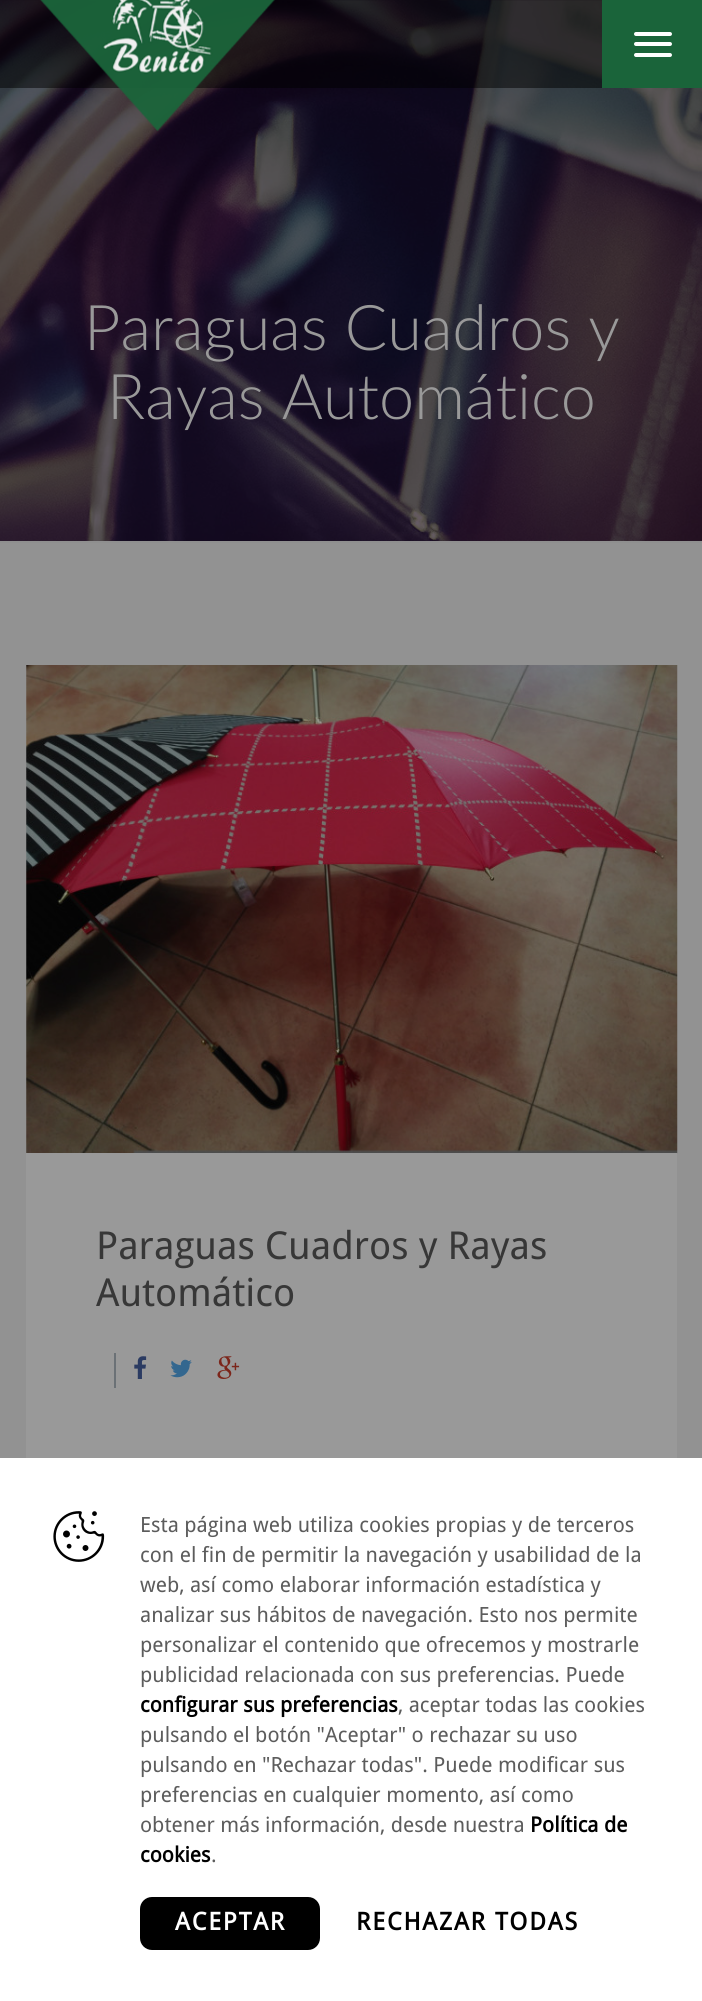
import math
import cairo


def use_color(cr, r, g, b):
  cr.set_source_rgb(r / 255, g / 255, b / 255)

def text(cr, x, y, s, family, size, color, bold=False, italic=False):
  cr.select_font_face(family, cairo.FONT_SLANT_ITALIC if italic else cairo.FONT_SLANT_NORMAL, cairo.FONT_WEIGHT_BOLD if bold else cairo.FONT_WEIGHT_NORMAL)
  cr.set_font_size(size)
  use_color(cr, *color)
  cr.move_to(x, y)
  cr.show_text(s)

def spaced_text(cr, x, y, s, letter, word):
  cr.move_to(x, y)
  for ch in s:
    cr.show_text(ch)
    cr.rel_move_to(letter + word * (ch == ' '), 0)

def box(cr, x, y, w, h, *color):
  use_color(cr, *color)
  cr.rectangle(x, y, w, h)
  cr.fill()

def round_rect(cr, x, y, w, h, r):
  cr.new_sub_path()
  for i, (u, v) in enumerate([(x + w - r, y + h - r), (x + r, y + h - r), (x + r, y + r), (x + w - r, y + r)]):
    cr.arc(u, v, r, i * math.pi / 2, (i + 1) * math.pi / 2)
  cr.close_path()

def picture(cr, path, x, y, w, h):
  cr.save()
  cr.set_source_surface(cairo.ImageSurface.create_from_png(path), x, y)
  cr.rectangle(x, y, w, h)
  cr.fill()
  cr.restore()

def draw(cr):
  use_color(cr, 146, 146, 146)
  cr.paint()
  picture(cr, "img_02.png", 0, 0, 702, 541)
  cr.set_source_rgba(0, 0, 0, 0.5)
  cr.rectangle(0, 0, 602, 88)
  cr.fill()
  picture(cr, "img_01.png", 40, 0, 235, 131)
  box(cr, 602, 0, 100, 88, 26, 100, 58)
  use_color(cr, 255, 255, 255)
  round_rect(cr, 634, 32, 38, 4, 2)
  cr.fill()
  round_rect(cr, 634, 42, 38, 4, 2)
  cr.fill()
  round_rect(cr, 634, 53, 38, 4, 2)
  cr.fill()
  box(cr, 0, 541, 702, 2, 143, 143, 143)
  picture(cr, "img_03.png", 26, 665, 652, 489)
  box(cr, 26, 1153, 651, 305, 153, 153, 153)
  box(cr, 114, 1353, 2, 35, 107, 113, 118)
  picture(cr, "img_04.png", 134, 1356, 13, 23)
  picture(cr, "img_05.png", 170, 1359, 22, 19)
  picture(cr, "img_06.png", 217, 1356, 23, 23)
  box(cr, 0, 1458, 702, 543, 255, 255, 255)
  picture(cr, "img_07.png", 53, 1511, 52, 51)
  use_color(cr, 0, 0, 0)
  round_rect(cr, 140, 1897, 180, 53, 12)
  cr.fill()
  text(cr, 84, 350, "Paraguas Cuadros y", "Lato Light", 63, (153, 153, 153))
  text(cr, 107, 419, "Rayas Automático", "Lato Light", 63, (153, 153, 153))
  text(cr, 96, 1259, "Paraguas Cuadros y Rayas", "Droid Sans", 38.5, (55, 55, 55))
  text(cr, 96, 1306, "Automático", "Droid Sans", 38.5, (55, 55, 55))
  text(cr, 140, 1532, "Esta página web utiliza cookies propias y de terceros", "Droid Sans", 21, (92, 92, 92))
  text(cr, 140, 1562, "con el fin de permitir la navegación y usabilidad de la", "Droid Sans", 21, (92, 92, 92))
  text(cr, 140, 1592, "web, así como elaborar información estadística y", "Droid Sans", 21, (92, 92, 92))
  text(cr, 140, 1622, "analizar sus hábitos de navegación. Esto nos permite", "Droid Sans", 21, (92, 92, 92))
  text(cr, 140, 1652, "personalizar el contenido que ofrecemos y mostrarle", "Droid Sans", 21, (92, 92, 92))
  text(cr, 140, 1682, "publicidad relacionada con sus preferencias. Puede", "Droid Sans", 21, (92, 92, 92))
  text(cr, 140, 1712, "configurar sus preferencias", "Droid Sans", 21, (0, 0, 0), bold=True)
  text(cr, 398, 1712, ", aceptar todas las cookies", "Droid Sans", 21, (92, 92, 92))
  text(cr, 140, 1742, "pulsando el botón \"Aceptar\" o rechazar su uso", "Droid Sans", 21, (92, 92, 92))
  text(cr, 140, 1772, "pulsando en \"Rechazar todas\". Puede modificar sus", "Droid Sans", 21, (92, 92, 92))
  text(cr, 140, 1802, "preferencias en cualquier momento, así como", "Droid Sans", 21, (92, 92, 92))
  text(cr, 140, 1832, "obtener más información, desde nuestra", "Droid Sans", 21, (92, 92, 92))
  text(cr, 530, 1832, "Política de", "Droid Sans", 21, (0, 0, 0), bold=True)
  text(cr, 140, 1862, "cookies", "Droid Sans", 21, (0, 0, 0), bold=True)
  text(cr, 211, 1862, ".", "Droid Sans", 21, (92, 92, 92))
  cr.select_font_face("Droid Sans", cairo.FONT_SLANT_NORMAL, cairo.FONT_WEIGHT_BOLD)
  cr.set_font_size(24.5)
  use_color(cr, 255, 255, 255)
  spaced_text(cr, 175, 1930, "ACEPTAR", 1.75, 0)
  use_color(cr, 0, 0, 0)
  spaced_text(cr, 356, 1930, "RECHAZAR TODAS", 1.75, 0)


surface = cairo.ImageSurface(cairo.FORMAT_RGB24, 702, 2001)
cr = cairo.Context(surface)
options = cairo.FontOptions()
options.set_hint_metrics(cairo.HINT_METRICS_OFF)
options.set_hint_style(cairo.HINT_STYLE_NONE)
cr.set_font_options(options)
cr.set_miter_limit(4)
draw(cr)
surface.write_to_png("out.png")
